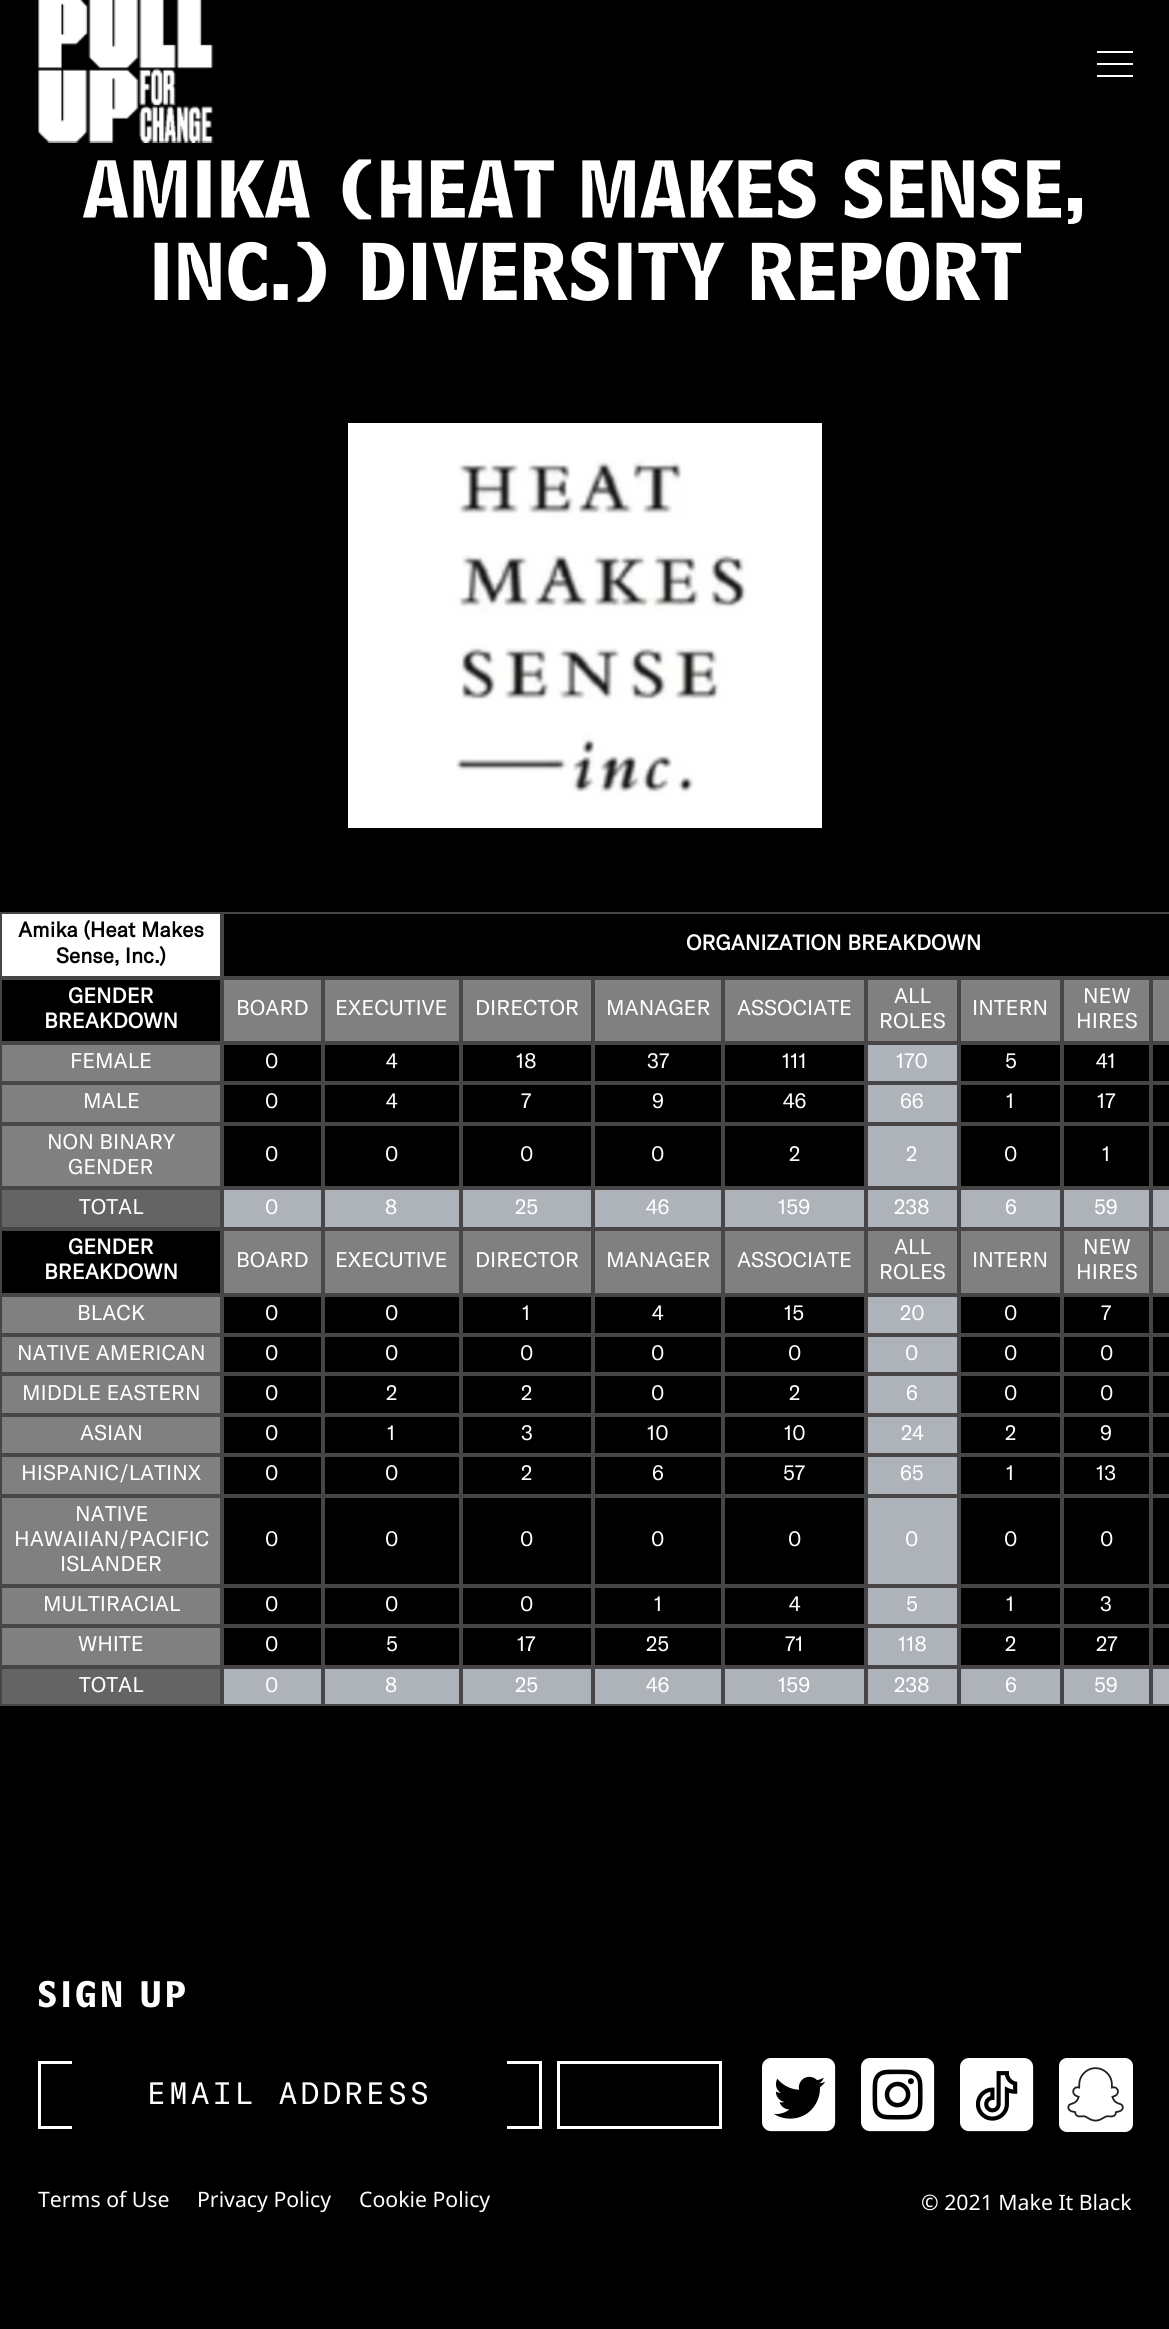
import math
import cairo


def use_color(cr, r, g, b):
  cr.set_source_rgb(r / 255, g / 255, b / 255)

def text(cr, x, y, s, family, size, color, bold=False, italic=False):
  cr.select_font_face(family, cairo.FONT_SLANT_ITALIC if italic else cairo.FONT_SLANT_NORMAL, cairo.FONT_WEIGHT_BOLD if bold else cairo.FONT_WEIGHT_NORMAL)
  cr.set_font_size(size)
  use_color(cr, *color)
  cr.move_to(x, y)
  cr.show_text(s)

def spaced_text(cr, x, y, s, letter, word):
  cr.move_to(x, y)
  for ch in s:
    cr.show_text(ch)
    cr.rel_move_to(letter + word * (ch == ' '), 0)

def box(cr, x, y, w, h, *color):
  use_color(cr, *color)
  cr.rectangle(x, y, w, h)
  cr.fill()

def round_rect(cr, x, y, w, h, r):
  cr.new_sub_path()
  for i, (u, v) in enumerate([(x + w - r, y + h - r), (x + r, y + h - r), (x + r, y + r), (x + w - r, y + r)]):
    cr.arc(u, v, r, i * math.pi / 2, (i + 1) * math.pi / 2)
  cr.close_path()

def picture(cr, path, x, y, w, h):
  cr.save()
  cr.set_source_surface(cairo.ImageSurface.create_from_png(path), x, y)
  cr.rectangle(x, y, w, h)
  cr.fill()
  cr.restore()

def draw(cr):
  use_color(cr, 0, 0, 0)
  cr.paint()
  picture(cr, "img_01.png", 38, 0, 176, 143)
  box(cr, 1097, 51, 36, 2, 255, 255, 255)
  box(cr, 1097, 63, 36, 2, 255, 255, 255)
  box(cr, 1097, 75, 36, 2, 255, 255, 255)
  picture(cr, "img_02.png", 83, 159, 1000, 66)
  picture(cr, "img_03.png", 154, 241, 867, 61)
  picture(cr, "img_04.png", 348, 423, 474, 405)
  cr.rectangle(1, 913, 220, 64)
  cr.fill_preserve()
  use_color(cr, 71, 69, 69)
  cr.stroke()
  cr.rectangle(223, 913, 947, 64)
  cr.stroke()
  cr.rectangle(1, 979, 220, 63)
  cr.stroke()
  use_color(cr, 128, 128, 128)
  cr.rectangle(223, 979, 99, 63)
  cr.fill_preserve()
  use_color(cr, 71, 69, 69)
  cr.stroke()
  use_color(cr, 128, 128, 128)
  cr.rectangle(324, 979, 136, 63)
  cr.fill_preserve()
  use_color(cr, 71, 69, 69)
  cr.stroke()
  use_color(cr, 128, 128, 128)
  cr.rectangle(462, 979, 130, 63)
  cr.fill_preserve()
  use_color(cr, 71, 69, 69)
  cr.stroke()
  use_color(cr, 128, 128, 128)
  cr.rectangle(594, 979, 128, 63)
  cr.fill_preserve()
  use_color(cr, 71, 69, 69)
  cr.stroke()
  use_color(cr, 128, 128, 128)
  cr.rectangle(724, 979, 141, 63)
  cr.fill_preserve()
  use_color(cr, 71, 69, 69)
  cr.stroke()
  use_color(cr, 128, 128, 128)
  cr.rectangle(867, 979, 91, 63)
  cr.fill_preserve()
  use_color(cr, 71, 69, 69)
  cr.stroke()
  use_color(cr, 128, 128, 128)
  cr.rectangle(960, 979, 101, 63)
  cr.fill_preserve()
  use_color(cr, 71, 69, 69)
  cr.stroke()
  use_color(cr, 128, 128, 128)
  cr.rectangle(1063, 979, 87, 63)
  cr.fill_preserve()
  use_color(cr, 71, 69, 69)
  cr.stroke()
  use_color(cr, 128, 128, 128)
  cr.rectangle(1152, 979, 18, 63)
  cr.fill_preserve()
  use_color(cr, 71, 69, 69)
  cr.stroke()
  use_color(cr, 128, 128, 128)
  cr.rectangle(1, 1044, 220, 38)
  cr.fill_preserve()
  use_color(cr, 71, 69, 69)
  cr.stroke()
  cr.rectangle(223, 1044, 99, 38)
  cr.stroke()
  cr.rectangle(324, 1044, 136, 38)
  cr.stroke()
  cr.rectangle(462, 1044, 130, 38)
  cr.stroke()
  cr.rectangle(594, 1044, 128, 38)
  cr.stroke()
  cr.rectangle(724, 1044, 141, 38)
  cr.stroke()
  use_color(cr, 173, 179, 185)
  cr.rectangle(867, 1044, 91, 38)
  cr.fill_preserve()
  use_color(cr, 71, 69, 69)
  cr.stroke()
  cr.rectangle(960, 1044, 101, 38)
  cr.stroke()
  cr.rectangle(1063, 1044, 87, 38)
  cr.stroke()
  cr.rectangle(1152, 1044, 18, 38)
  cr.stroke()
  use_color(cr, 128, 128, 128)
  cr.rectangle(1, 1084, 220, 39)
  cr.fill_preserve()
  use_color(cr, 71, 69, 69)
  cr.stroke()
  cr.rectangle(223, 1084, 99, 39)
  cr.stroke()
  cr.rectangle(324, 1084, 136, 39)
  cr.stroke()
  cr.rectangle(462, 1084, 130, 39)
  cr.stroke()
  cr.rectangle(594, 1084, 128, 39)
  cr.stroke()
  cr.rectangle(724, 1084, 141, 39)
  cr.stroke()
  use_color(cr, 173, 179, 185)
  cr.rectangle(867, 1084, 91, 39)
  cr.fill_preserve()
  use_color(cr, 71, 69, 69)
  cr.stroke()
  cr.rectangle(960, 1084, 101, 39)
  cr.stroke()
  cr.rectangle(1063, 1084, 87, 39)
  cr.stroke()
  cr.rectangle(1152, 1084, 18, 39)
  cr.stroke()
  use_color(cr, 128, 128, 128)
  cr.rectangle(1, 1125, 220, 62)
  cr.fill_preserve()
  use_color(cr, 71, 69, 69)
  cr.stroke()
  cr.rectangle(223, 1125, 99, 62)
  cr.stroke()
  cr.rectangle(324, 1125, 136, 62)
  cr.stroke()
  cr.rectangle(462, 1125, 130, 62)
  cr.stroke()
  cr.rectangle(594, 1125, 128, 62)
  cr.stroke()
  cr.rectangle(724, 1125, 141, 62)
  cr.stroke()
  use_color(cr, 173, 179, 185)
  cr.rectangle(867, 1125, 91, 62)
  cr.fill_preserve()
  use_color(cr, 71, 69, 69)
  cr.stroke()
  cr.rectangle(960, 1125, 101, 62)
  cr.stroke()
  cr.rectangle(1063, 1125, 87, 62)
  cr.stroke()
  cr.rectangle(1152, 1125, 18, 62)
  cr.stroke()
  use_color(cr, 100, 100, 100)
  cr.rectangle(1, 1189, 220, 39)
  cr.fill_preserve()
  use_color(cr, 71, 69, 69)
  cr.stroke()
  use_color(cr, 173, 179, 185)
  cr.rectangle(223, 1189, 99, 39)
  cr.fill_preserve()
  use_color(cr, 71, 69, 69)
  cr.stroke()
  use_color(cr, 173, 179, 185)
  cr.rectangle(324, 1189, 136, 39)
  cr.fill_preserve()
  use_color(cr, 71, 69, 69)
  cr.stroke()
  use_color(cr, 173, 179, 185)
  cr.rectangle(462, 1189, 130, 39)
  cr.fill_preserve()
  use_color(cr, 71, 69, 69)
  cr.stroke()
  use_color(cr, 173, 179, 185)
  cr.rectangle(594, 1189, 128, 39)
  cr.fill_preserve()
  use_color(cr, 71, 69, 69)
  cr.stroke()
  use_color(cr, 173, 179, 185)
  cr.rectangle(724, 1189, 141, 39)
  cr.fill_preserve()
  use_color(cr, 71, 69, 69)
  cr.stroke()
  use_color(cr, 173, 179, 185)
  cr.rectangle(867, 1189, 91, 39)
  cr.fill_preserve()
  use_color(cr, 71, 69, 69)
  cr.stroke()
  use_color(cr, 173, 179, 185)
  cr.rectangle(960, 1189, 101, 39)
  cr.fill_preserve()
  use_color(cr, 71, 69, 69)
  cr.stroke()
  use_color(cr, 173, 179, 185)
  cr.rectangle(1063, 1189, 87, 39)
  cr.fill_preserve()
  use_color(cr, 71, 69, 69)
  cr.stroke()
  use_color(cr, 173, 179, 185)
  cr.rectangle(1152, 1189, 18, 39)
  cr.fill_preserve()
  use_color(cr, 71, 69, 69)
  cr.stroke()
  cr.rectangle(1, 1230, 220, 64)
  cr.stroke()
  use_color(cr, 128, 128, 128)
  cr.rectangle(223, 1230, 99, 64)
  cr.fill_preserve()
  use_color(cr, 71, 69, 69)
  cr.stroke()
  use_color(cr, 128, 128, 128)
  cr.rectangle(324, 1230, 136, 64)
  cr.fill_preserve()
  use_color(cr, 71, 69, 69)
  cr.stroke()
  use_color(cr, 128, 128, 128)
  cr.rectangle(462, 1230, 130, 64)
  cr.fill_preserve()
  use_color(cr, 71, 69, 69)
  cr.stroke()
  use_color(cr, 128, 128, 128)
  cr.rectangle(594, 1230, 128, 64)
  cr.fill_preserve()
  use_color(cr, 71, 69, 69)
  cr.stroke()
  use_color(cr, 128, 128, 128)
  cr.rectangle(724, 1230, 141, 64)
  cr.fill_preserve()
  use_color(cr, 71, 69, 69)
  cr.stroke()
  use_color(cr, 128, 128, 128)
  cr.rectangle(867, 1230, 91, 64)
  cr.fill_preserve()
  use_color(cr, 71, 69, 69)
  cr.stroke()
  use_color(cr, 128, 128, 128)
  cr.rectangle(960, 1230, 101, 64)
  cr.fill_preserve()
  use_color(cr, 71, 69, 69)
  cr.stroke()
  use_color(cr, 128, 128, 128)
  cr.rectangle(1063, 1230, 87, 64)
  cr.fill_preserve()
  use_color(cr, 71, 69, 69)
  cr.stroke()
  use_color(cr, 128, 128, 128)
  cr.rectangle(1152, 1230, 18, 64)
  cr.fill_preserve()
  use_color(cr, 71, 69, 69)
  cr.stroke()
  use_color(cr, 128, 128, 128)
  cr.rectangle(1, 1296, 220, 38)
  cr.fill_preserve()
  use_color(cr, 71, 69, 69)
  cr.stroke()
  cr.rectangle(223, 1296, 99, 38)
  cr.stroke()
  cr.rectangle(324, 1296, 136, 38)
  cr.stroke()
  cr.rectangle(462, 1296, 130, 38)
  cr.stroke()
  cr.rectangle(594, 1296, 128, 38)
  cr.stroke()
  cr.rectangle(724, 1296, 141, 38)
  cr.stroke()
  use_color(cr, 173, 179, 185)
  cr.rectangle(867, 1296, 91, 38)
  cr.fill_preserve()
  use_color(cr, 71, 69, 69)
  cr.stroke()
  cr.rectangle(960, 1296, 101, 38)
  cr.stroke()
  cr.rectangle(1063, 1296, 87, 38)
  cr.stroke()
  cr.rectangle(1152, 1296, 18, 38)
  cr.stroke()
  use_color(cr, 128, 128, 128)
  cr.rectangle(1, 1336, 220, 37)
  cr.fill_preserve()
  use_color(cr, 71, 69, 69)
  cr.stroke()
  cr.rectangle(223, 1336, 99, 37)
  cr.stroke()
  cr.rectangle(324, 1336, 136, 37)
  cr.stroke()
  cr.rectangle(462, 1336, 130, 37)
  cr.stroke()
  cr.rectangle(594, 1336, 128, 37)
  cr.stroke()
  cr.rectangle(724, 1336, 141, 37)
  cr.stroke()
  use_color(cr, 173, 179, 185)
  cr.rectangle(867, 1336, 91, 37)
  cr.fill_preserve()
  use_color(cr, 71, 69, 69)
  cr.stroke()
  cr.rectangle(960, 1336, 101, 37)
  cr.stroke()
  cr.rectangle(1063, 1336, 87, 37)
  cr.stroke()
  cr.rectangle(1152, 1336, 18, 37)
  cr.stroke()
  use_color(cr, 128, 128, 128)
  cr.rectangle(1, 1375, 220, 39)
  cr.fill_preserve()
  use_color(cr, 71, 69, 69)
  cr.stroke()
  cr.rectangle(223, 1375, 99, 39)
  cr.stroke()
  cr.rectangle(324, 1375, 136, 39)
  cr.stroke()
  cr.rectangle(462, 1375, 130, 39)
  cr.stroke()
  cr.rectangle(594, 1375, 128, 39)
  cr.stroke()
  cr.rectangle(724, 1375, 141, 39)
  cr.stroke()
  use_color(cr, 173, 179, 185)
  cr.rectangle(867, 1375, 91, 39)
  cr.fill_preserve()
  use_color(cr, 71, 69, 69)
  cr.stroke()
  cr.rectangle(960, 1375, 101, 39)
  cr.stroke()
  cr.rectangle(1063, 1375, 87, 39)
  cr.stroke()
  cr.rectangle(1152, 1375, 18, 39)
  cr.stroke()
  use_color(cr, 128, 128, 128)
  cr.rectangle(1, 1416, 220, 38)
  cr.fill_preserve()
  use_color(cr, 71, 69, 69)
  cr.stroke()
  cr.rectangle(223, 1416, 99, 38)
  cr.stroke()
  cr.rectangle(324, 1416, 136, 38)
  cr.stroke()
  cr.rectangle(462, 1416, 130, 38)
  cr.stroke()
  cr.rectangle(594, 1416, 128, 38)
  cr.stroke()
  cr.rectangle(724, 1416, 141, 38)
  cr.stroke()
  use_color(cr, 173, 179, 185)
  cr.rectangle(867, 1416, 91, 38)
  cr.fill_preserve()
  use_color(cr, 71, 69, 69)
  cr.stroke()
  cr.rectangle(960, 1416, 101, 38)
  cr.stroke()
  cr.rectangle(1063, 1416, 87, 38)
  cr.stroke()
  cr.rectangle(1152, 1416, 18, 38)
  cr.stroke()
  use_color(cr, 128, 128, 128)
  cr.rectangle(1, 1456, 220, 39)
  cr.fill_preserve()
  use_color(cr, 71, 69, 69)
  cr.stroke()
  cr.rectangle(223, 1456, 99, 39)
  cr.stroke()
  cr.rectangle(324, 1456, 136, 39)
  cr.stroke()
  cr.rectangle(462, 1456, 130, 39)
  cr.stroke()
  cr.rectangle(594, 1456, 128, 39)
  cr.stroke()
  cr.rectangle(724, 1456, 141, 39)
  cr.stroke()
  use_color(cr, 173, 179, 185)
  cr.rectangle(867, 1456, 91, 39)
  cr.fill_preserve()
  use_color(cr, 71, 69, 69)
  cr.stroke()
  cr.rectangle(960, 1456, 101, 39)
  cr.stroke()
  cr.rectangle(1063, 1456, 87, 39)
  cr.stroke()
  cr.rectangle(1152, 1456, 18, 39)
  cr.stroke()
  use_color(cr, 128, 128, 128)
  cr.rectangle(1, 1497, 220, 88)
  cr.fill_preserve()
  use_color(cr, 71, 69, 69)
  cr.stroke()
  cr.rectangle(223, 1497, 99, 88)
  cr.stroke()
  cr.rectangle(324, 1497, 136, 88)
  cr.stroke()
  cr.rectangle(462, 1497, 130, 88)
  cr.stroke()
  cr.rectangle(594, 1497, 128, 88)
  cr.stroke()
  cr.rectangle(724, 1497, 141, 88)
  cr.stroke()
  use_color(cr, 173, 179, 185)
  cr.rectangle(867, 1497, 91, 88)
  cr.fill_preserve()
  use_color(cr, 71, 69, 69)
  cr.stroke()
  cr.rectangle(960, 1497, 101, 88)
  cr.stroke()
  cr.rectangle(1063, 1497, 87, 88)
  cr.stroke()
  cr.rectangle(1152, 1497, 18, 88)
  cr.stroke()
  use_color(cr, 128, 128, 128)
  cr.rectangle(1, 1587, 220, 38)
  cr.fill_preserve()
  use_color(cr, 71, 69, 69)
  cr.stroke()
  cr.rectangle(223, 1587, 99, 38)
  cr.stroke()
  cr.rectangle(324, 1587, 136, 38)
  cr.stroke()
  cr.rectangle(462, 1587, 130, 38)
  cr.stroke()
  cr.rectangle(594, 1587, 128, 38)
  cr.stroke()
  cr.rectangle(724, 1587, 141, 38)
  cr.stroke()
  use_color(cr, 173, 179, 185)
  cr.rectangle(867, 1587, 91, 38)
  cr.fill_preserve()
  use_color(cr, 71, 69, 69)
  cr.stroke()
  cr.rectangle(960, 1587, 101, 38)
  cr.stroke()
  cr.rectangle(1063, 1587, 87, 38)
  cr.stroke()
  cr.rectangle(1152, 1587, 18, 38)
  cr.stroke()
  use_color(cr, 128, 128, 128)
  cr.rectangle(1, 1627, 220, 39)
  cr.fill_preserve()
  use_color(cr, 71, 69, 69)
  cr.stroke()
  cr.rectangle(223, 1627, 99, 39)
  cr.stroke()
  cr.rectangle(324, 1627, 136, 39)
  cr.stroke()
  cr.rectangle(462, 1627, 130, 39)
  cr.stroke()
  cr.rectangle(594, 1627, 128, 39)
  cr.stroke()
  cr.rectangle(724, 1627, 141, 39)
  cr.stroke()
  use_color(cr, 173, 179, 185)
  cr.rectangle(867, 1627, 91, 39)
  cr.fill_preserve()
  use_color(cr, 71, 69, 69)
  cr.stroke()
  cr.rectangle(960, 1627, 101, 39)
  cr.stroke()
  cr.rectangle(1063, 1627, 87, 39)
  cr.stroke()
  cr.rectangle(1152, 1627, 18, 39)
  cr.stroke()
  use_color(cr, 100, 100, 100)
  cr.rectangle(1, 1668, 220, 37)
  cr.fill_preserve()
  use_color(cr, 71, 69, 69)
  cr.stroke()
  use_color(cr, 173, 179, 185)
  cr.rectangle(223, 1668, 99, 37)
  cr.fill_preserve()
  use_color(cr, 71, 69, 69)
  cr.stroke()
  use_color(cr, 173, 179, 185)
  cr.rectangle(324, 1668, 136, 37)
  cr.fill_preserve()
  use_color(cr, 71, 69, 69)
  cr.stroke()
  use_color(cr, 173, 179, 185)
  cr.rectangle(462, 1668, 130, 37)
  cr.fill_preserve()
  use_color(cr, 71, 69, 69)
  cr.stroke()
  use_color(cr, 173, 179, 185)
  cr.rectangle(594, 1668, 128, 37)
  cr.fill_preserve()
  use_color(cr, 71, 69, 69)
  cr.stroke()
  use_color(cr, 173, 179, 185)
  cr.rectangle(724, 1668, 141, 37)
  cr.fill_preserve()
  use_color(cr, 71, 69, 69)
  cr.stroke()
  use_color(cr, 173, 179, 185)
  cr.rectangle(867, 1668, 91, 37)
  cr.fill_preserve()
  use_color(cr, 71, 69, 69)
  cr.stroke()
  use_color(cr, 173, 179, 185)
  cr.rectangle(960, 1668, 101, 37)
  cr.fill_preserve()
  use_color(cr, 71, 69, 69)
  cr.stroke()
  use_color(cr, 173, 179, 185)
  cr.rectangle(1063, 1668, 87, 37)
  cr.fill_preserve()
  use_color(cr, 71, 69, 69)
  cr.stroke()
  use_color(cr, 173, 179, 185)
  cr.rectangle(1152, 1668, 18, 37)
  cr.fill_preserve()
  use_color(cr, 71, 69, 69)
  cr.stroke()
  picture(cr, "img_05.png", 38, 1980, 147, 28)
  cr.rectangle(39.5, 2062.5, 501, 65)
  use_color(cr, 255, 255, 255)
  cr.set_line_width(3)
  cr.stroke()
  box(cr, 72, 2061, 435, 68, 0, 0, 0)
  cr.rectangle(558.5, 2062.5, 162, 65)
  use_color(cr, 255, 255, 255)
  cr.stroke()
  picture(cr, "img_06.png", 762, 2058, 74, 74)
  picture(cr, "img_07.png", 861, 2058, 74, 74)
  picture(cr, "img_08.png", 960, 2058, 74, 74)
  round_rect(cr, 1059, 2058, 74, 74, 8)
  cr.fill()
  picture(cr, "img_09.png", 1067, 2067, 57, 55)
  text(cr, 18, 937, "Amika (Heat Makes", "GT America", 21, (0, 0, 0), bold=True)
  text(cr, 56, 963, "Sense, Inc.)", "GT America", 21, (0, 0, 0), bold=True)
  text(cr, 686, 950, "ORGANIZATION BREAKDOWN", "GT America", 21, (255, 255, 255), bold=True)
  text(cr, 68, 1003, "GENDER", "GT America", 21, (255, 255, 255), bold=True)
  text(cr, 44, 1028, "BREAKDOWN", "GT America", 21, (255, 255, 255), bold=True)
  text(cr, 236, 1015, "BOARD", "GT America", 21, (255, 255, 255))
  text(cr, 335, 1015, "EXECUTIVE", "GT America", 21, (255, 255, 255))
  text(cr, 475, 1015, "DIRECTOR", "GT America", 21, (255, 255, 255))
  text(cr, 606, 1015, "MANAGER", "GT America", 21, (255, 255, 255))
  text(cr, 737, 1015, "ASSOCIATE", "GT America", 21, (255, 255, 255))
  text(cr, 894, 1003, "ALL", "GT America", 21, (255, 255, 255))
  text(cr, 879, 1028, "ROLES", "GT America", 21, (255, 255, 255))
  text(cr, 972, 1015, "INTERN", "GT America", 21, (255, 255, 255))
  text(cr, 1083, 1003, "NEW", "GT America", 21, (255, 255, 255))
  text(cr, 1076, 1028, "HIRES", "GT America", 21, (255, 255, 255))
  text(cr, 70, 1068, "FEMALE", "GT America", 21, (255, 255, 255))
  text(cr, 265, 1068, "0", "GT America", 21, (255, 255, 255))
  text(cr, 386, 1068, "4", "GT America", 21, (255, 255, 255))
  text(cr, 516, 1068, "18", "GT America", 21, (255, 255, 255))
  text(cr, 647, 1068, "37", "GT America", 21, (255, 255, 255))
  text(cr, 782, 1068, "111", "GT America", 21, (255, 255, 255))
  text(cr, 896, 1068, "170", "GT America", 21, (255, 255, 255))
  text(cr, 1005, 1068, "5", "GT America", 21, (255, 255, 255))
  text(cr, 1096, 1068, "41", "GT America", 21, (255, 255, 255))
  text(cr, 83, 1108, "MALE", "GT America", 21, (255, 255, 255))
  text(cr, 265, 1108, "0", "GT America", 21, (255, 255, 255))
  text(cr, 386, 1108, "4", "GT America", 21, (255, 255, 255))
  text(cr, 521, 1108, "7", "GT America", 21, (255, 255, 255))
  text(cr, 652, 1108, "9", "GT America", 21, (255, 255, 255))
  text(cr, 783, 1108, "46", "GT America", 21, (255, 255, 255))
  text(cr, 900, 1108, "66", "GT America", 21, (255, 255, 255))
  text(cr, 1006, 1108, "1", "GT America", 21, (255, 255, 255))
  text(cr, 1097, 1108, "17", "GT America", 21, (255, 255, 255))
  text(cr, 47, 1149, "NON BINARY", "GT America", 21, (255, 255, 255))
  text(cr, 68, 1174, "GENDER", "GT America", 21, (255, 255, 255))
  text(cr, 265, 1161, "0", "GT America", 21, (255, 255, 255))
  text(cr, 385, 1161, "0", "GT America", 21, (255, 255, 255))
  text(cr, 520, 1161, "0", "GT America", 21, (255, 255, 255))
  text(cr, 651, 1161, "0", "GT America", 21, (255, 255, 255))
  text(cr, 789, 1161, "2", "GT America", 21, (255, 255, 255))
  text(cr, 906, 1161, "2", "GT America", 21, (255, 255, 255))
  text(cr, 1004, 1161, "0", "GT America", 21, (255, 255, 255))
  text(cr, 1102, 1161, "1", "GT America", 21, (255, 255, 255))
  text(cr, 79, 1214, "TOTAL", "GT America", 21, (255, 255, 255))
  text(cr, 265, 1214, "0", "GT America", 21, (255, 255, 255))
  text(cr, 385, 1214, "8", "GT America", 21, (255, 255, 255))
  text(cr, 515, 1214, "25", "GT America", 21, (255, 255, 255))
  text(cr, 646, 1214, "46", "GT America", 21, (255, 255, 255))
  text(cr, 778, 1214, "159", "GT America", 21, (255, 255, 255))
  text(cr, 894, 1214, "238", "GT America", 21, (255, 255, 255))
  text(cr, 1005, 1214, "6", "GT America", 21, (255, 255, 255))
  text(cr, 1094, 1214, "59", "GT America", 21, (255, 255, 255))
  text(cr, 68, 1254, "GENDER", "GT America", 21, (255, 255, 255), bold=True)
  text(cr, 44, 1279, "BREAKDOWN", "GT America", 21, (255, 255, 255), bold=True)
  text(cr, 236, 1267, "BOARD", "GT America", 21, (255, 255, 255))
  text(cr, 335, 1267, "EXECUTIVE", "GT America", 21, (255, 255, 255))
  text(cr, 475, 1267, "DIRECTOR", "GT America", 21, (255, 255, 255))
  text(cr, 606, 1267, "MANAGER", "GT America", 21, (255, 255, 255))
  text(cr, 737, 1267, "ASSOCIATE", "GT America", 21, (255, 255, 255))
  text(cr, 894, 1254, "ALL", "GT America", 21, (255, 255, 255))
  text(cr, 879, 1279, "ROLES", "GT America", 21, (255, 255, 255))
  text(cr, 972, 1267, "INTERN", "GT America", 21, (255, 255, 255))
  text(cr, 1083, 1254, "NEW", "GT America", 21, (255, 255, 255))
  text(cr, 1076, 1279, "HIRES", "GT America", 21, (255, 255, 255))
  text(cr, 77, 1320, "BLACK", "GT America", 21, (255, 255, 255))
  text(cr, 265, 1320, "0", "GT America", 21, (255, 255, 255))
  text(cr, 385, 1320, "0", "GT America", 21, (255, 255, 255))
  text(cr, 522, 1320, "1", "GT America", 21, (255, 255, 255))
  text(cr, 652, 1320, "4", "GT America", 21, (255, 255, 255))
  text(cr, 784, 1320, "15", "GT America", 21, (255, 255, 255))
  text(cr, 900, 1320, "20", "GT America", 21, (255, 255, 255))
  text(cr, 1004, 1320, "0", "GT America", 21, (255, 255, 255))
  text(cr, 1101, 1320, "7", "GT America", 21, (255, 255, 255))
  text(cr, 17, 1360, "NATIVE AMERICAN", "GT America", 21, (255, 255, 255))
  text(cr, 265, 1360, "0", "GT America", 21, (255, 255, 255))
  text(cr, 385, 1360, "0", "GT America", 21, (255, 255, 255))
  text(cr, 520, 1360, "0", "GT America", 21, (255, 255, 255))
  text(cr, 651, 1360, "0", "GT America", 21, (255, 255, 255))
  text(cr, 788, 1360, "0", "GT America", 21, (255, 255, 255))
  text(cr, 905, 1360, "0", "GT America", 21, (255, 255, 255))
  text(cr, 1004, 1360, "0", "GT America", 21, (255, 255, 255))
  text(cr, 1100, 1360, "0", "GT America", 21, (255, 255, 255))
  text(cr, 22, 1400, "MIDDLE EASTERN", "GT America", 21, (255, 255, 255))
  text(cr, 265, 1400, "0", "GT America", 21, (255, 255, 255))
  text(cr, 386, 1400, "2", "GT America", 21, (255, 255, 255))
  text(cr, 521, 1400, "2", "GT America", 21, (255, 255, 255))
  text(cr, 651, 1400, "0", "GT America", 21, (255, 255, 255))
  text(cr, 789, 1400, "2", "GT America", 21, (255, 255, 255))
  text(cr, 906, 1400, "6", "GT America", 21, (255, 255, 255))
  text(cr, 1004, 1400, "0", "GT America", 21, (255, 255, 255))
  text(cr, 1100, 1400, "0", "GT America", 21, (255, 255, 255))
  text(cr, 80, 1440, "ASIAN", "GT America", 21, (255, 255, 255))
  text(cr, 265, 1440, "0", "GT America", 21, (255, 255, 255))
  text(cr, 387, 1440, "1", "GT America", 21, (255, 255, 255))
  text(cr, 521, 1440, "3", "GT America", 21, (255, 255, 255))
  text(cr, 647, 1440, "10", "GT America", 21, (255, 255, 255))
  text(cr, 784, 1440, "10", "GT America", 21, (255, 255, 255))
  text(cr, 901, 1440, "24", "GT America", 21, (255, 255, 255))
  text(cr, 1005, 1440, "2", "GT America", 21, (255, 255, 255))
  text(cr, 1100, 1440, "9", "GT America", 21, (255, 255, 255))
  text(cr, 21, 1480, "HISPANIC/LATINX", "GT America", 21, (255, 255, 255))
  text(cr, 265, 1480, "0", "GT America", 21, (255, 255, 255))
  text(cr, 385, 1480, "0", "GT America", 21, (255, 255, 255))
  text(cr, 521, 1480, "2", "GT America", 21, (255, 255, 255))
  text(cr, 652, 1480, "6", "GT America", 21, (255, 255, 255))
  text(cr, 783, 1480, "57", "GT America", 21, (255, 255, 255))
  text(cr, 900, 1480, "65", "GT America", 21, (255, 255, 255))
  text(cr, 1006, 1480, "1", "GT America", 21, (255, 255, 255))
  text(cr, 1096, 1480, "13", "GT America", 21, (255, 255, 255))
  text(cr, 75, 1521, "NATIVE", "GT America", 21, (255, 255, 255))
  text(cr, 14, 1546, "HAWAIIAN/PACIFIC", "GT America", 21, (255, 255, 255))
  text(cr, 60, 1571, "ISLANDER", "GT America", 21, (255, 255, 255))
  text(cr, 265, 1546, "0", "GT America", 21, (255, 255, 255))
  text(cr, 385, 1546, "0", "GT America", 21, (255, 255, 255))
  text(cr, 520, 1546, "0", "GT America", 21, (255, 255, 255))
  text(cr, 651, 1546, "0", "GT America", 21, (255, 255, 255))
  text(cr, 788, 1546, "0", "GT America", 21, (255, 255, 255))
  text(cr, 905, 1546, "0", "GT America", 21, (255, 255, 255))
  text(cr, 1004, 1546, "0", "GT America", 21, (255, 255, 255))
  text(cr, 1100, 1546, "0", "GT America", 21, (255, 255, 255))
  text(cr, 43, 1611, "MULTIRACIAL", "GT America", 21, (255, 255, 255))
  text(cr, 265, 1611, "0", "GT America", 21, (255, 255, 255))
  text(cr, 385, 1611, "0", "GT America", 21, (255, 255, 255))
  text(cr, 520, 1611, "0", "GT America", 21, (255, 255, 255))
  text(cr, 654, 1611, "1", "GT America", 21, (255, 255, 255))
  text(cr, 789, 1611, "4", "GT America", 21, (255, 255, 255))
  text(cr, 906, 1611, "5", "GT America", 21, (255, 255, 255))
  text(cr, 1006, 1611, "1", "GT America", 21, (255, 255, 255))
  text(cr, 1100, 1611, "3", "GT America", 21, (255, 255, 255))
  text(cr, 78, 1651, "WHITE", "GT America", 21, (255, 255, 255))
  text(cr, 265, 1651, "0", "GT America", 21, (255, 255, 255))
  text(cr, 386, 1651, "5", "GT America", 21, (255, 255, 255))
  text(cr, 517, 1651, "17", "GT America", 21, (255, 255, 255))
  text(cr, 646, 1651, "25", "GT America", 21, (255, 255, 255))
  text(cr, 785, 1651, "71", "GT America", 21, (255, 255, 255))
  text(cr, 898, 1651, "118", "GT America", 21, (255, 255, 255))
  text(cr, 1005, 1651, "2", "GT America", 21, (255, 255, 255))
  text(cr, 1096, 1651, "27", "GT America", 21, (255, 255, 255))
  text(cr, 79, 1692, "TOTAL", "GT America", 21, (255, 255, 255))
  text(cr, 265, 1692, "0", "GT America", 21, (255, 255, 255))
  text(cr, 385, 1692, "8", "GT America", 21, (255, 255, 255))
  text(cr, 515, 1692, "25", "GT America", 21, (255, 255, 255))
  text(cr, 646, 1692, "46", "GT America", 21, (255, 255, 255))
  text(cr, 778, 1692, "159", "GT America", 21, (255, 255, 255))
  text(cr, 894, 1692, "238", "GT America", 21, (255, 255, 255))
  text(cr, 1005, 1692, "6", "GT America", 21, (255, 255, 255))
  text(cr, 1094, 1692, "59", "GT America", 21, (255, 255, 255))
  cr.select_font_face("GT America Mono")
  cr.set_font_size(30.5)
  spaced_text(cr, 147, 2104, "EMAIL ADDRESS", 3, 0)
  text(cr, 38, 2207, "Terms of Use", "Noto Sans", 21.25, (255, 255, 255))
  text(cr, 197, 2207, "Privacy Policy", "Noto Sans", 21.25, (255, 255, 255))
  text(cr, 359, 2207, "Cookie Policy", "Noto Sans", 21.25, (255, 255, 255))
  text(cr, 921, 2210, "© 2021 Make It Black", "Noto Sans", 21.25, (255, 255, 255))


surface = cairo.ImageSurface(cairo.FORMAT_RGB24, 1169, 2329)
cr = cairo.Context(surface)
options = cairo.FontOptions()
options.set_hint_metrics(cairo.HINT_METRICS_OFF)
options.set_hint_style(cairo.HINT_STYLE_NONE)
cr.set_font_options(options)
cr.set_miter_limit(4)
draw(cr)
surface.write_to_png("out.png")
